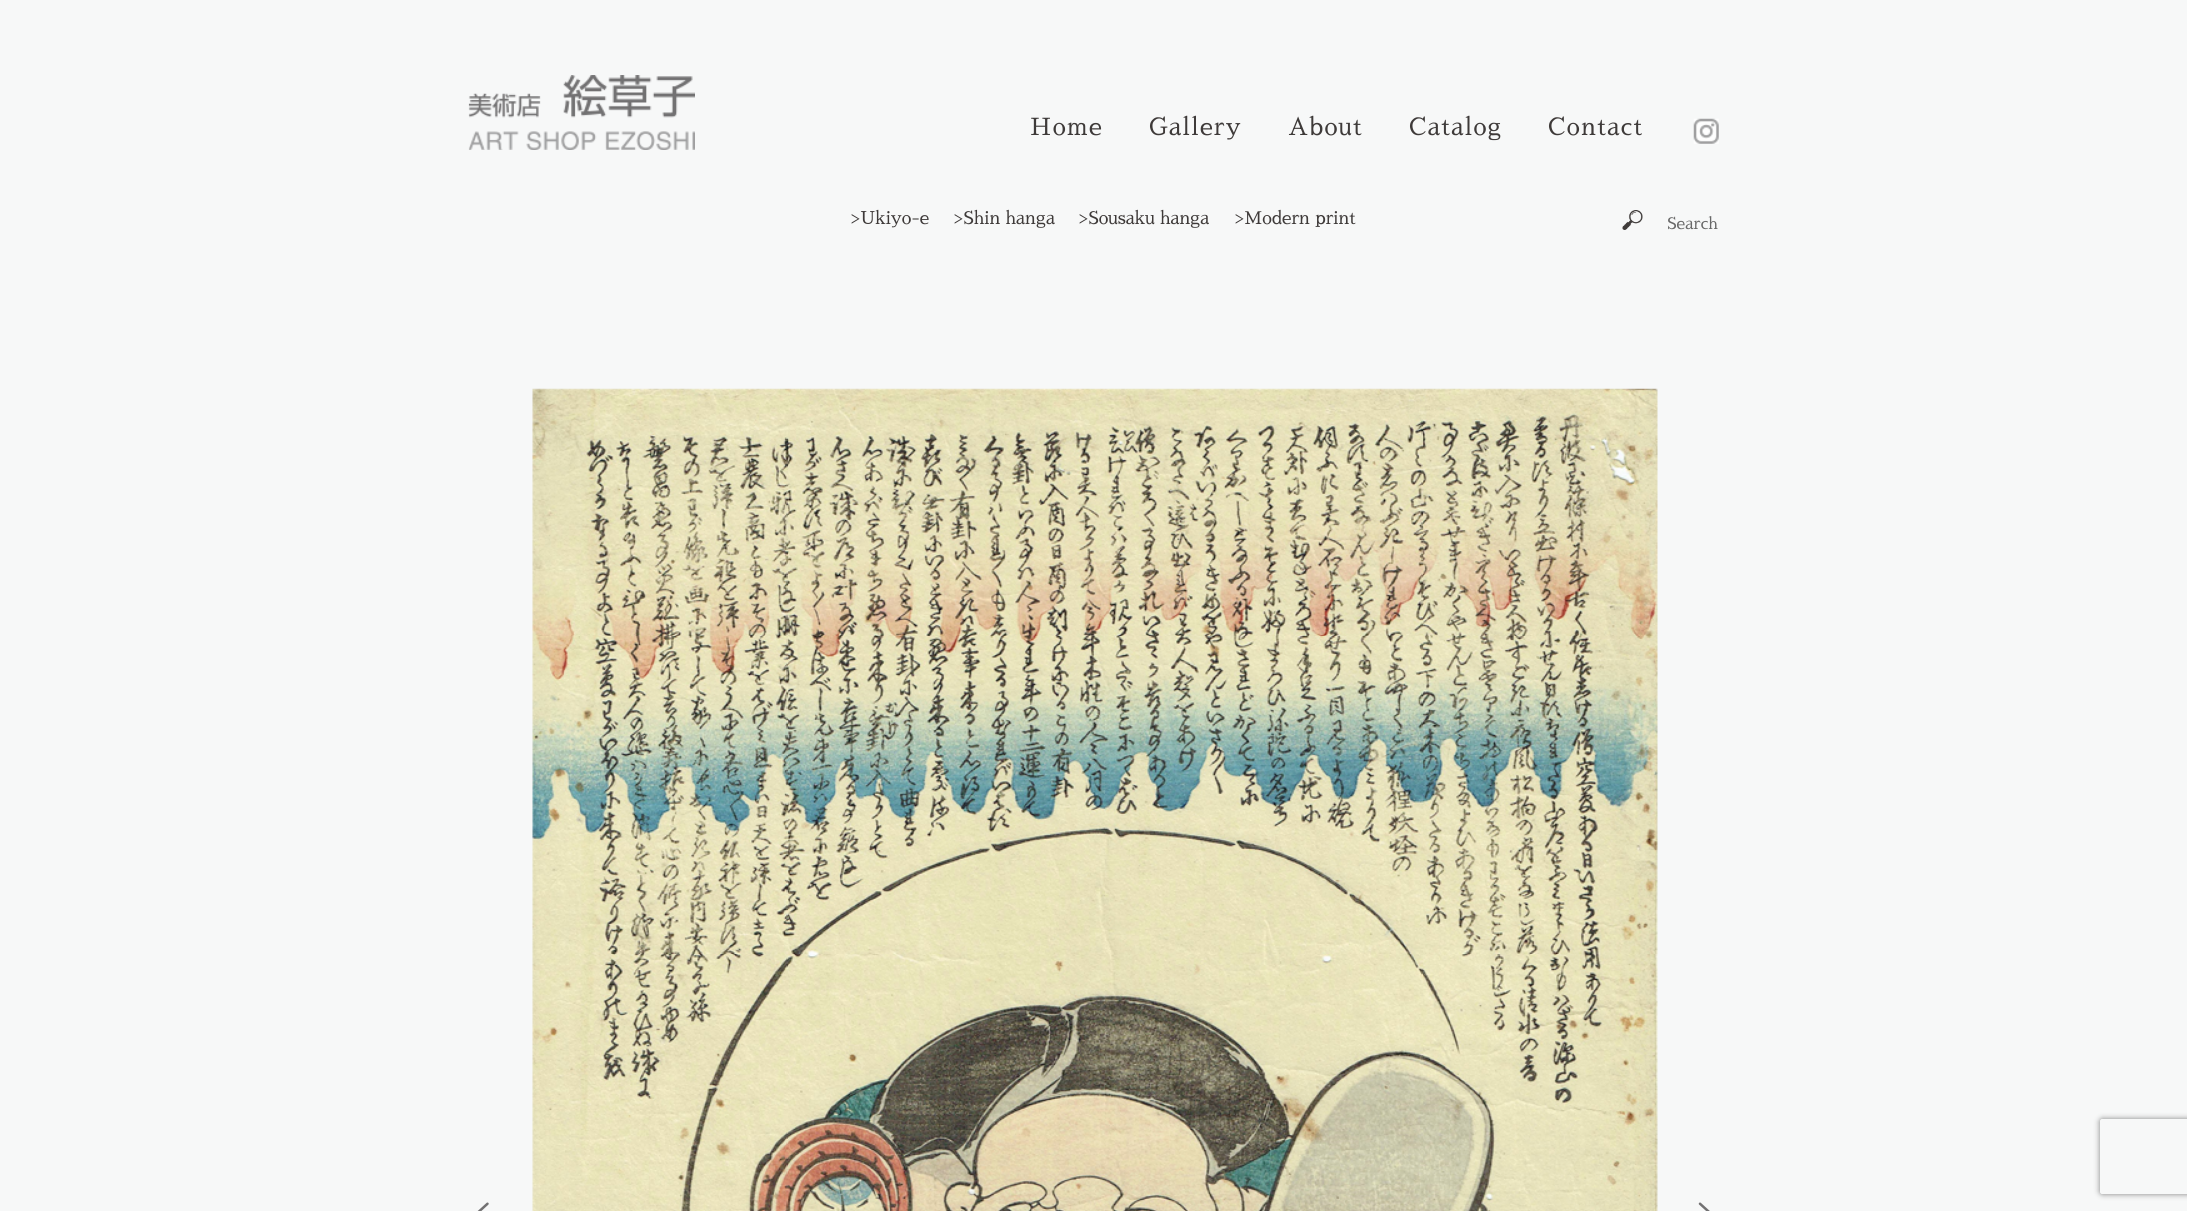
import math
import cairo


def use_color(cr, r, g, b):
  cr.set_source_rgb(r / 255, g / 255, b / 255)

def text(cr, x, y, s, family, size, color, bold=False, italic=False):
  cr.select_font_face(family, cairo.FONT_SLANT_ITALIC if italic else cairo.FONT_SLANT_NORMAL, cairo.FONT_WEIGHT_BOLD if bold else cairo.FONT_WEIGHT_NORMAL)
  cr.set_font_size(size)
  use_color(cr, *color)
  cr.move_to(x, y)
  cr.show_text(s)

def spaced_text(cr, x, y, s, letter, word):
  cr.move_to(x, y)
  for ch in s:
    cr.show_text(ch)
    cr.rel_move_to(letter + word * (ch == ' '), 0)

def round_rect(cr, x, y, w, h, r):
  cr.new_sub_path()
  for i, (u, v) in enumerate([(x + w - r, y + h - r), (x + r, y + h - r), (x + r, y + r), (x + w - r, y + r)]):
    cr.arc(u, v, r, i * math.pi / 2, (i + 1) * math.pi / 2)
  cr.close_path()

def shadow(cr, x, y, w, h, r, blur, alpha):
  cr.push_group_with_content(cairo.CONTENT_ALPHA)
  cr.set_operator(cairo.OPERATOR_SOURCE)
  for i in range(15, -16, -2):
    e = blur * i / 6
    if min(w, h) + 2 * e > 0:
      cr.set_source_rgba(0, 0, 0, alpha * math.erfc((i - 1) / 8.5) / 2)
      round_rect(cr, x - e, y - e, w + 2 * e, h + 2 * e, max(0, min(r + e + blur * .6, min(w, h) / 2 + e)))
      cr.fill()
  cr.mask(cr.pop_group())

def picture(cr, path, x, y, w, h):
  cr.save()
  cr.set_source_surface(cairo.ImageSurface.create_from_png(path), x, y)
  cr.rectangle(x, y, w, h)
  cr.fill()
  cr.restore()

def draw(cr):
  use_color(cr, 247, 248, 248)
  cr.paint()
  picture(cr, "img_01.png", 468, 75, 227, 75)
  picture(cr, "img_02.png", 1693, 118, 26, 26)
  picture(cr, "img_03.png", 1622, 210, 21, 20)
  picture(cr, "img_04.png", 477, 1202, 12, 9)
  picture(cr, "img_05.png", 532, 388, 1126, 823)
  picture(cr, "img_06.png", 1698, 1202, 12, 9)
  cr.save()
  cr.set_fill_rule(cairo.FILL_RULE_EVEN_ODD)
  cr.new_path()
  cr.move_to(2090, 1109)
  cr.line_to(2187, 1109)
  cr.line_to(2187, 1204)
  cr.line_to(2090, 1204)
  cr.close_path()
  cr.move_to(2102.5, 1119)
  cr.line_to(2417.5, 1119)
  cr.curve_to(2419, 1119, 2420, 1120, 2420, 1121.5)
  cr.line_to(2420, 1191.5)
  cr.curve_to(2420, 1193, 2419, 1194, 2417.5, 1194)
  cr.line_to(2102.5, 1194)
  cr.curve_to(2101, 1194, 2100, 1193, 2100, 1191.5)
  cr.line_to(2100, 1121.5)
  cr.curve_to(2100, 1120, 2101, 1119, 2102.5, 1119)
  cr.close_path()
  cr.clip()
  use_color(cr, 128, 128, 128)
  shadow(cr, 2100, 1119, 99, 75, 2.5, 3, 1)
  cr.restore()
  cr.select_font_face("Sawarabi Mincho")
  cr.set_font_size(23.75)
  use_color(cr, 62, 58, 57)
  spaced_text(cr, 1030, 135, "Home", 1.25, 0)
  spaced_text(cr, 1149, 135, "Gallery", 1.25, 0)
  spaced_text(cr, 1288, 135, "About", 1.25, 0)
  spaced_text(cr, 1409, 135, "Catalog", 1.25, 0)
  spaced_text(cr, 1548, 135, "Contact", 1.25, 0)
  text(cr, 851, 224, ">Ukiyo-e", "Sawarabi Mincho", 17.5, (62, 58, 57))
  text(cr, 954, 224, ">Shin hanga", "Sawarabi Mincho", 17.5, (62, 58, 57))
  text(cr, 1079, 224, ">Sousaku hanga", "Sawarabi Mincho", 17.5, (62, 58, 57))
  text(cr, 1235, 224, ">Modern print", "Sawarabi Mincho", 17.5, (62, 58, 57))
  text(cr, 1667, 229, "Search", "Sawarabi Mincho", 16, (104, 104, 104))


surface = cairo.ImageSurface(cairo.FORMAT_RGB24, 2187, 1211)
cr = cairo.Context(surface)
options = cairo.FontOptions()
options.set_hint_metrics(cairo.HINT_METRICS_OFF)
options.set_hint_style(cairo.HINT_STYLE_NONE)
cr.set_font_options(options)
cr.set_miter_limit(4)
draw(cr)
surface.write_to_png("out.png")
